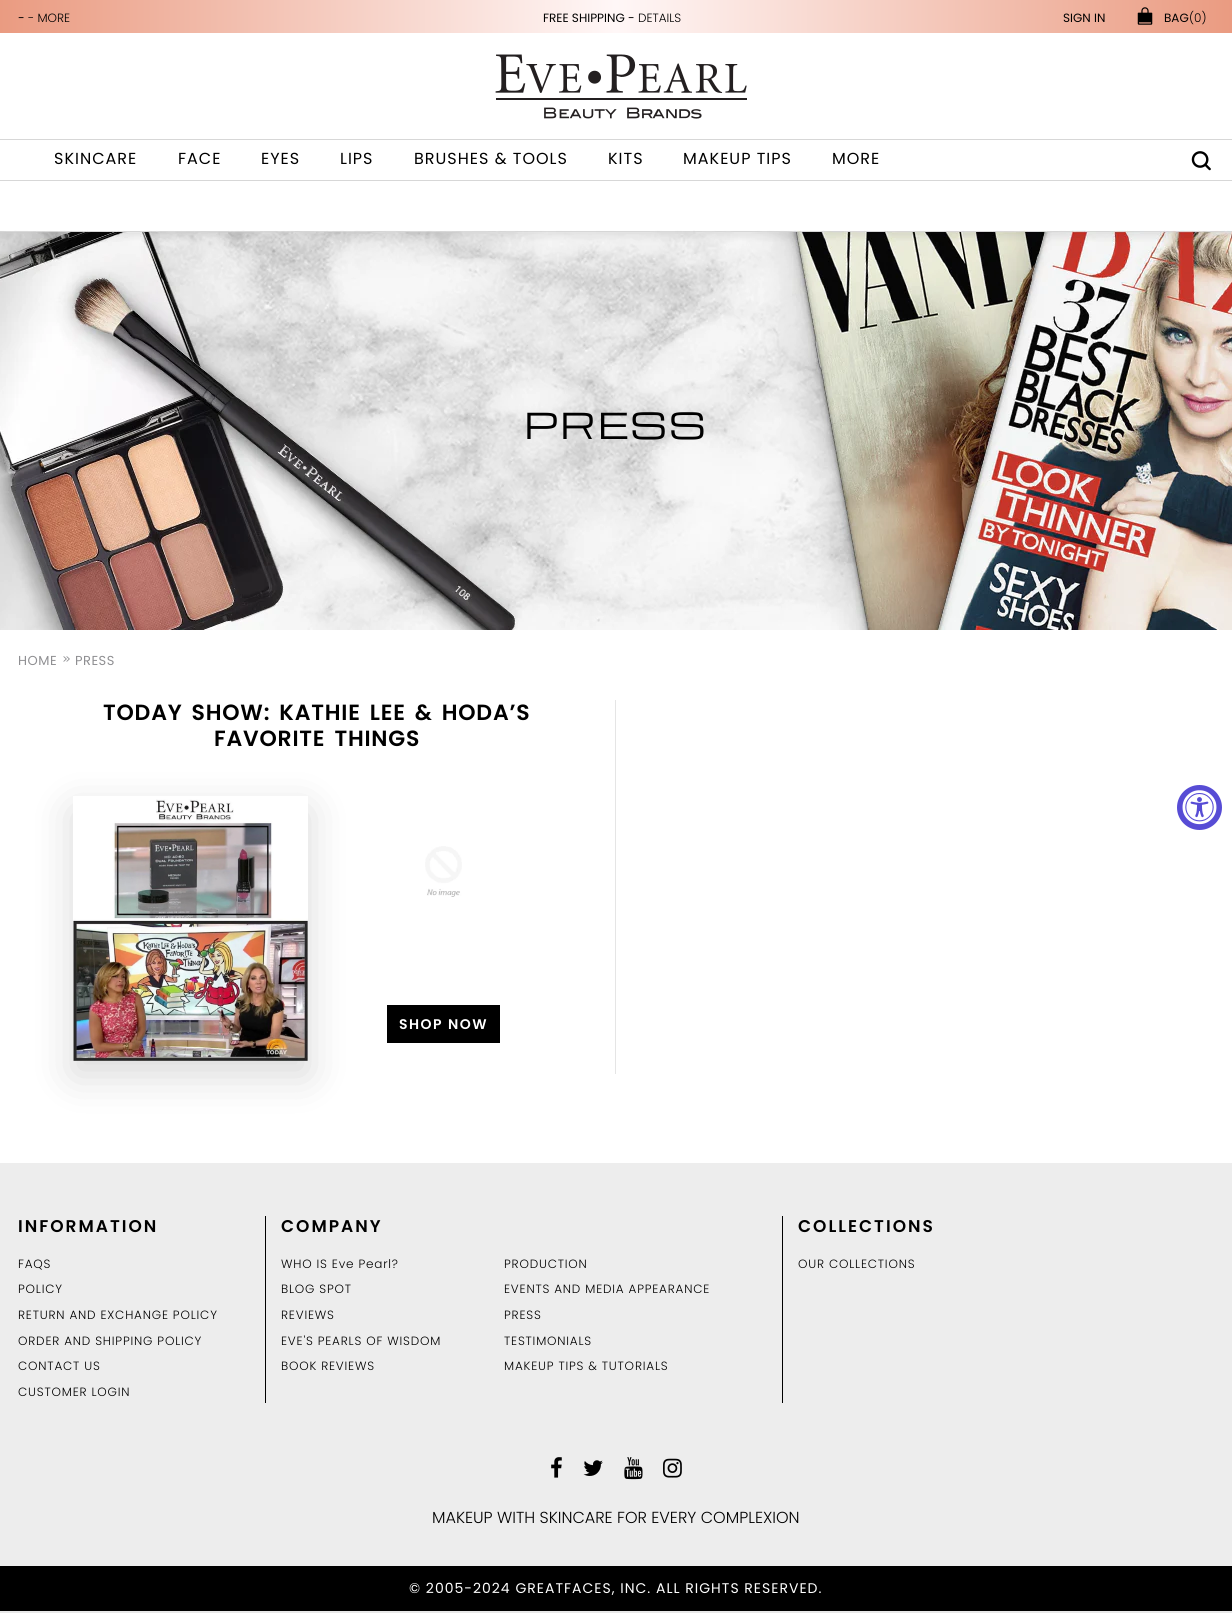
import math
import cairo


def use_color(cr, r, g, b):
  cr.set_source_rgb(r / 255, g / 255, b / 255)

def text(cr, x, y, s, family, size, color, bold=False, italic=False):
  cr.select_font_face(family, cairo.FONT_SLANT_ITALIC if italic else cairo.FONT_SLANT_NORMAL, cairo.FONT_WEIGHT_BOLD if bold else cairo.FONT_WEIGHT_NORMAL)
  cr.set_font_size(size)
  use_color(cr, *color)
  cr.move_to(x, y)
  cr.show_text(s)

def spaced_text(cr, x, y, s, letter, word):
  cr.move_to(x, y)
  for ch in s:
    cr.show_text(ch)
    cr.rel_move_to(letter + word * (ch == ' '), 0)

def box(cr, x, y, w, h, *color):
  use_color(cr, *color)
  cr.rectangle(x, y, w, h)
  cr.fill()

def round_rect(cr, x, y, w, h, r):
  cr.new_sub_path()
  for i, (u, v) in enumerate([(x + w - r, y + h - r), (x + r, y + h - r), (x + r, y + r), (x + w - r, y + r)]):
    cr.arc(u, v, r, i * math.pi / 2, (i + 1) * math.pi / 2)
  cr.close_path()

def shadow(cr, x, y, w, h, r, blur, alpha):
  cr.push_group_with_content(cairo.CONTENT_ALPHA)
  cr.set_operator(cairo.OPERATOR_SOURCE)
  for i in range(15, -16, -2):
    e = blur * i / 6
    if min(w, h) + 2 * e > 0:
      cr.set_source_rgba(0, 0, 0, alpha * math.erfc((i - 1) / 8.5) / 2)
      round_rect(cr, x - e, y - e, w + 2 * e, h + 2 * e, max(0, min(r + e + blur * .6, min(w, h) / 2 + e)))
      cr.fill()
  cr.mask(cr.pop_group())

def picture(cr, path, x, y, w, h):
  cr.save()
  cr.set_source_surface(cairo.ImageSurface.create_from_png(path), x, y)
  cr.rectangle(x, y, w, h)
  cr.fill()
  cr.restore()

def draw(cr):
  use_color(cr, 232, 232, 232)
  cr.paint()
  box(cr, 0, 33, 1232, 1130, 255, 255, 255)
  gradient = cairo.LinearGradient(0, 17, 1232, 16)
  gradient.add_color_stop_rgba(0, 0.918, 0.608, 0.506, 1)
  gradient.add_color_stop_rgba(0.5, 1, 0.969, 0.969, 1)
  gradient.add_color_stop_rgba(1, 0.918, 0.608, 0.506, 1)
  gradient.add_color_stop_rgba(1, 0.961, 0.969, 0.976, 1)
  cr.set_source(gradient)
  cr.rectangle(0, 0, 1232, 33)
  cr.fill()
  picture(cr, "img_01.png", 1137, 7, 16, 18)
  picture(cr, "img_02.png", 495, 54, 252, 65)
  box(cr, 0, 139, 1232, 1, 215, 215, 215)
  box(cr, 0, 180, 1232, 1, 215, 215, 215)
  picture(cr, "img_03.png", 1191, 151, 20, 20)
  picture(cr, "img_04.png", 0, 230, 1232, 400)
  box(cr, 615, 700, 1, 374, 229, 229, 229)
  cr.save()
  cr.set_fill_rule(cairo.FILL_RULE_EVEN_ODD)
  cr.new_path()
  cr.move_to(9, 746)
  cr.line_to(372, 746)
  cr.line_to(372, 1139)
  cr.line_to(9, 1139)
  cr.close_path()
  cr.move_to(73, 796)
  cr.line_to(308, 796)
  cr.line_to(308, 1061)
  cr.line_to(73, 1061)
  cr.close_path()
  cr.clip()
  use_color(cr, 0, 0, 0)
  shadow(cr, 73, 810, 235, 265, 0, 21, 0.15)
  cr.restore()
  picture(cr, "img_05.png", 73, 799, 235, 262)
  picture(cr, "img_06.png", 425, 846, 37, 51)
  box(cr, 387, 1005, 113, 38, 0, 0, 0)
  box(cr, 0, 1163, 1232, 403, 237, 237, 237)
  box(cr, 265, 1216, 1, 187, 0, 0, 0)
  box(cr, 782, 1216, 1, 187, 0, 0, 0)
  picture(cr, "img_07.png", 551, 1457, 11, 21)
  picture(cr, "img_08.png", 583, 1460, 20, 16)
  picture(cr, "img_09.png", 624, 1457, 19, 23)
  picture(cr, "img_10.png", 663, 1458, 19, 20)
  box(cr, 0, 1566, 1232, 45, 0, 0, 0)
  use_color(cr, 87, 76, 213)
  cr.arc(1199.5, 807.5, 22.5, 0, 2 * math.pi)
  cr.fill()
  picture(cr, "img_11.png", 1182, 790, 35, 35)
  text(cr, 18, 22, "-", "Poppins", 12, (0, 0, 0))
  text(cr, 28, 22, "- MORE", "Poppins Light", 12, (0, 0, 0))
  text(cr, 543, 22, "FREE SHIPPING -", "Poppins", 12, (0, 0, 0))
  text(cr, 638, 22, "DETAILS", "Poppins Light", 12, (0, 0, 0))
  text(cr, 1063, 22, "SIGN IN", "Poppins", 12, (0, 0, 0))
  text(cr, 1164, 22, "BAG", "Poppins", 12, (0, 0, 0))
  text(cr, 1189, 22, "(0)", "Poppins Light", 12, (0, 0, 0))
  cr.select_font_face("Poppins")
  cr.set_font_size(16)
  spaced_text(cr, 54, 164, "SKINCARE", 1, 0)
  spaced_text(cr, 178, 164, "FACE", 1, 0)
  spaced_text(cr, 261, 164, "EYES", 1, 0)
  spaced_text(cr, 340, 164, "LIPS", 1, 0)
  spaced_text(cr, 414, 164, "BRUSHES & TOOLS", 1, 0)
  spaced_text(cr, 608, 164, "KITS", 1, 0)
  spaced_text(cr, 683, 164, "MAKEUP TIPS", 1, 0)
  spaced_text(cr, 832, 164, "MORE", 1, 0)
  cr.select_font_face("Michroma")
  cr.set_font_size(35)
  spaced_text(cr, 524, 439, "PRESS", 2, 0)
  cr.select_font_face("Poppins")
  cr.set_font_size(13)
  use_color(cr, 143, 143, 146)
  spaced_text(cr, 18, 665, "HOME", 0.5, 0)
  cr.set_font_size(11)
  spaced_text(cr, 62, 663, ">>", -3, 0)
  cr.set_font_size(13)
  spaced_text(cr, 75, 665, "PRESS", 0.5, 0)
  cr.select_font_face("Poppins SemiBold")
  cr.set_font_size(22)
  use_color(cr, 0, 0, 0)
  spaced_text(cr, 103, 720, "TODAY SHOW: KATHIE LEE & HODA’S", 0.8, 3)
  spaced_text(cr, 214, 746, "FAVORITE THINGS", 0.8, 3)
  cr.set_font_size(14)
  use_color(cr, 255, 255, 255)
  spaced_text(cr, 399, 1029, "SHOP NOW", 1.5, 0)
  cr.set_font_size(17)
  use_color(cr, 0, 0, 0)
  spaced_text(cr, 18, 1232, "INFORMATION", 2, 0)
  cr.select_font_face("Poppins Light")
  cr.set_font_size(12)
  spaced_text(cr, 18, 1268, "FAQS", 0.8, 0)
  spaced_text(cr, 18, 1293, "POLICY", 0.8, 0)
  spaced_text(cr, 18, 1319, "RETURN AND EXCHANGE POLICY", 0.8, 0)
  spaced_text(cr, 18, 1345, "ORDER AND SHIPPING POLICY", 0.8, 0)
  spaced_text(cr, 18, 1370, "CONTACT US", 0.8, 0)
  spaced_text(cr, 18, 1396, "CUSTOMER LOGIN", 0.8, 0)
  cr.select_font_face("Poppins SemiBold")
  cr.set_font_size(17)
  spaced_text(cr, 281, 1232, "COMPANY", 2, 0)
  cr.select_font_face("Poppins Light")
  cr.set_font_size(12)
  spaced_text(cr, 281, 1268, "WHO IS Eve Pearl?", 0.8, 0)
  spaced_text(cr, 504, 1268, "PRODUCTION", 0.8, 0)
  spaced_text(cr, 281, 1293, "BLOG SPOT", 0.8, 0)
  spaced_text(cr, 504, 1293, "EVENTS AND MEDIA APPEARANCE", 0.8, 0)
  spaced_text(cr, 281, 1319, "REVIEWS", 0.8, 0)
  spaced_text(cr, 504, 1319, "PRESS", 0.8, 0)
  spaced_text(cr, 281, 1345, "EVE'S PEARLS OF WISDOM", 0.8, 0)
  spaced_text(cr, 504, 1345, "TESTIMONIALS", 0.8, 0)
  spaced_text(cr, 281, 1370, "BOOK REVIEWS", 0.8, 0)
  spaced_text(cr, 504, 1370, "MAKEUP TIPS & TUTORIALS", 0.8, 0)
  cr.select_font_face("Poppins SemiBold")
  cr.set_font_size(17)
  spaced_text(cr, 798, 1232, "COLLECTIONS", 2, 0)
  cr.select_font_face("Poppins Light")
  cr.set_font_size(12)
  spaced_text(cr, 798, 1268, "OUR COLLECTIONS", 0.8, 0)
  text(cr, 432, 1523, "MAKEUP WITH SKINCARE FOR EVERY COMPLEXION", "Poppins Light", 16, (0, 0, 0))
  cr.select_font_face("Poppins")
  cr.set_font_size(14)
  use_color(cr, 255, 255, 255)
  spaced_text(cr, 409, 1593, "© 2005-2024 GREATFACES, INC. ALL RIGHTS RESERVED.", 1, 0)


surface = cairo.ImageSurface(cairo.FORMAT_RGB24, 1232, 1613)
cr = cairo.Context(surface)
options = cairo.FontOptions()
options.set_hint_metrics(cairo.HINT_METRICS_OFF)
options.set_hint_style(cairo.HINT_STYLE_NONE)
cr.set_font_options(options)
cr.set_miter_limit(4)
draw(cr)
surface.write_to_png("out.png")
